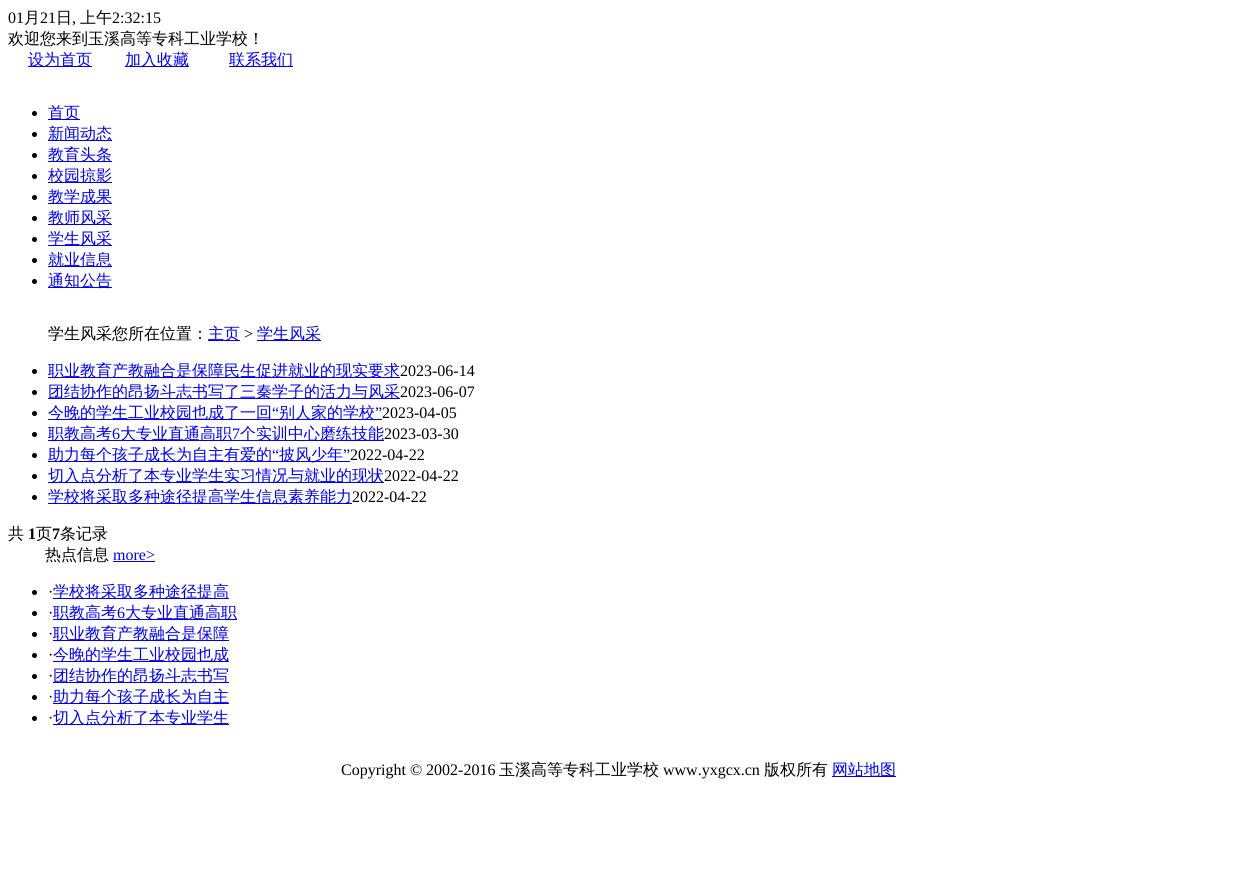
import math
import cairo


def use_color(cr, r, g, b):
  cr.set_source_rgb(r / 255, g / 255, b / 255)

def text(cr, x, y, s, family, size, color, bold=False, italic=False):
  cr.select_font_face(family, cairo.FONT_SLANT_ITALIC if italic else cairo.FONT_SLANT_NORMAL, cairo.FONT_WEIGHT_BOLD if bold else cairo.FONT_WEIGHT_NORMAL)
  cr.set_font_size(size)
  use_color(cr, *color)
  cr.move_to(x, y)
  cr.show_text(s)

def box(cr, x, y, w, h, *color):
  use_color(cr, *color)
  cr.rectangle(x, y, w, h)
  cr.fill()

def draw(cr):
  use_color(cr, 255, 255, 255)
  cr.paint()
  box(cr, 28, 66, 64, 1, 0, 0, 238)
  box(cr, 125, 66, 64, 1, 0, 0, 238)
  box(cr, 229, 66, 64, 1, 0, 0, 238)
  use_color(cr, 0, 0, 0)
  cr.arc(34.5, 113.5, 2.5, 0, 2 * math.pi)
  cr.fill()
  box(cr, 48, 119, 32, 1, 0, 0, 238)
  use_color(cr, 0, 0, 0)
  cr.arc(34.5, 134.5, 2.5, 0, 2 * math.pi)
  cr.fill()
  box(cr, 48, 140, 64, 1, 0, 0, 238)
  use_color(cr, 0, 0, 0)
  cr.arc(34.5, 155.5, 2.5, 0, 2 * math.pi)
  cr.fill()
  box(cr, 48, 161, 64, 1, 0, 0, 238)
  use_color(cr, 0, 0, 0)
  cr.arc(34.5, 176.5, 2.5, 0, 2 * math.pi)
  cr.fill()
  box(cr, 48, 182, 64, 1, 0, 0, 238)
  use_color(cr, 0, 0, 0)
  cr.arc(34.5, 197.5, 2.5, 0, 2 * math.pi)
  cr.fill()
  box(cr, 48, 203, 64, 1, 0, 0, 238)
  use_color(cr, 0, 0, 0)
  cr.arc(34.5, 218.5, 2.5, 0, 2 * math.pi)
  cr.fill()
  box(cr, 48, 224, 64, 1, 0, 0, 238)
  use_color(cr, 0, 0, 0)
  cr.arc(34.5, 239.5, 2.5, 0, 2 * math.pi)
  cr.fill()
  box(cr, 48, 245, 64, 1, 0, 0, 238)
  use_color(cr, 0, 0, 0)
  cr.arc(34.5, 260.5, 2.5, 0, 2 * math.pi)
  cr.fill()
  box(cr, 48, 266, 64, 1, 0, 0, 238)
  use_color(cr, 0, 0, 0)
  cr.arc(34.5, 281.5, 2.5, 0, 2 * math.pi)
  cr.fill()
  box(cr, 48, 287, 64, 1, 0, 0, 238)
  box(cr, 208, 340, 32, 1, 0, 0, 238)
  box(cr, 257, 340, 64, 1, 0, 0, 238)
  use_color(cr, 0, 0, 0)
  cr.arc(34.5, 371.5, 2.5, 0, 2 * math.pi)
  cr.fill()
  box(cr, 48, 377, 352, 1, 0, 0, 238)
  use_color(cr, 0, 0, 0)
  cr.arc(34.5, 392.5, 2.5, 0, 2 * math.pi)
  cr.fill()
  box(cr, 48, 398, 352, 1, 0, 0, 238)
  use_color(cr, 0, 0, 0)
  cr.arc(34.5, 413.5, 2.5, 0, 2 * math.pi)
  cr.fill()
  box(cr, 48, 419, 334, 1, 0, 0, 238)
  use_color(cr, 0, 0, 0)
  cr.arc(34.5, 434.5, 2.5, 0, 2 * math.pi)
  cr.fill()
  box(cr, 48, 440, 336, 1, 0, 0, 238)
  use_color(cr, 0, 0, 0)
  cr.arc(34.5, 455.5, 2.5, 0, 2 * math.pi)
  cr.fill()
  box(cr, 48, 461, 302, 1, 0, 0, 238)
  use_color(cr, 0, 0, 0)
  cr.arc(34.5, 476.5, 2.5, 0, 2 * math.pi)
  cr.fill()
  box(cr, 48, 482, 336, 1, 0, 0, 238)
  use_color(cr, 0, 0, 0)
  cr.arc(34.5, 497.5, 2.5, 0, 2 * math.pi)
  cr.fill()
  box(cr, 48, 503, 304, 1, 0, 0, 238)
  box(cr, 113, 561, 42, 1, 0, 0, 238)
  use_color(cr, 0, 0, 0)
  cr.arc(34.5, 592.5, 2.5, 0, 2 * math.pi)
  cr.fill()
  box(cr, 53, 598, 176, 1, 0, 0, 238)
  use_color(cr, 0, 0, 0)
  cr.arc(34.5, 613.5, 2.5, 0, 2 * math.pi)
  cr.fill()
  box(cr, 53, 619, 184, 1, 0, 0, 238)
  use_color(cr, 0, 0, 0)
  cr.arc(34.5, 634.5, 2.5, 0, 2 * math.pi)
  cr.fill()
  box(cr, 53, 640, 176, 1, 0, 0, 238)
  use_color(cr, 0, 0, 0)
  cr.arc(34.5, 655.5, 2.5, 0, 2 * math.pi)
  cr.fill()
  box(cr, 53, 661, 176, 1, 0, 0, 238)
  use_color(cr, 0, 0, 0)
  cr.arc(34.5, 676.5, 2.5, 0, 2 * math.pi)
  cr.fill()
  box(cr, 53, 682, 176, 1, 0, 0, 238)
  use_color(cr, 0, 0, 0)
  cr.arc(34.5, 697.5, 2.5, 0, 2 * math.pi)
  cr.fill()
  box(cr, 53, 703, 176, 1, 0, 0, 238)
  use_color(cr, 0, 0, 0)
  cr.arc(34.5, 718.5, 2.5, 0, 2 * math.pi)
  cr.fill()
  box(cr, 53, 724, 176, 1, 0, 0, 238)
  box(cr, 832, 776, 64, 1, 0, 0, 238)
  text(cr, 8, 23, "01", "Liberation Serif", 16, (0, 0, 0))
  text(cr, 24, 23, "月", "WenQuanYi Zen Hei Medium", 16, (0, 0, 0))
  text(cr, 40, 23, "21", "Liberation Serif", 16, (0, 0, 0))
  text(cr, 56, 23, "日", "WenQuanYi Zen Hei Medium", 16, (0, 0, 0))
  text(cr, 72, 23, ",", "Liberation Serif", 16, (0, 0, 0))
  text(cr, 80, 23, "上午", "WenQuanYi Zen Hei Medium", 16, (0, 0, 0))
  text(cr, 112, 23, "2:32:15", "Liberation Serif", 16, (0, 0, 0))
  text(cr, 8, 44, "欢迎您来到玉溪高等专科工业学校！", "WenQuanYi Zen Hei Medium", 16, (0, 0, 0))
  text(cr, 28, 65, "设为首页", "WenQuanYi Zen Hei Medium", 16, (0, 0, 238))
  text(cr, 125, 65, "加入收藏", "WenQuanYi Zen Hei Medium", 16, (0, 0, 238))
  text(cr, 229, 65, "联系我们", "WenQuanYi Zen Hei Medium", 16, (0, 0, 238))
  text(cr, 48, 118, "首页", "WenQuanYi Zen Hei Medium", 16, (0, 0, 238))
  text(cr, 48, 139, "新闻动态", "WenQuanYi Zen Hei Medium", 16, (0, 0, 238))
  text(cr, 48, 160, "教育头条", "WenQuanYi Zen Hei Medium", 16, (0, 0, 238))
  text(cr, 48, 181, "校园掠影", "WenQuanYi Zen Hei Medium", 16, (0, 0, 238))
  text(cr, 48, 202, "教学成果", "WenQuanYi Zen Hei Medium", 16, (0, 0, 238))
  text(cr, 48, 223, "教师风采", "WenQuanYi Zen Hei Medium", 16, (0, 0, 238))
  text(cr, 48, 244, "学生风采", "WenQuanYi Zen Hei Medium", 16, (0, 0, 238))
  text(cr, 48, 265, "就业信息", "WenQuanYi Zen Hei Medium", 16, (0, 0, 238))
  text(cr, 48, 286, "通知公告", "WenQuanYi Zen Hei Medium", 16, (0, 0, 238))
  text(cr, 48, 339, "学生风采您所在位置：", "WenQuanYi Zen Hei Medium", 16, (0, 0, 0))
  text(cr, 208, 339, "主页", "WenQuanYi Zen Hei Medium", 16, (0, 0, 238))
  text(cr, 244, 339, ">", "Liberation Serif", 16, (0, 0, 0))
  text(cr, 257, 339, "学生风采", "WenQuanYi Zen Hei Medium", 16, (0, 0, 238))
  text(cr, 48, 376, "职业教育产教融合是保障民生促进就业的现实要求", "WenQuanYi Zen Hei Medium", 16, (0, 0, 238))
  text(cr, 400, 376, "2023-06-14", "Liberation Serif", 16, (0, 0, 0))
  text(cr, 48, 397, "团结协作的昂扬斗志书写了三秦学子的活力与风采", "WenQuanYi Zen Hei Medium", 16, (0, 0, 238))
  text(cr, 400, 397, "2023-06-07", "Liberation Serif", 16, (0, 0, 0))
  text(cr, 48, 418, "今晚的学生工业校园也成了一回", "WenQuanYi Zen Hei Medium", 16, (0, 0, 238))
  text(cr, 272, 418, "“", "Liberation Serif", 16, (0, 0, 238))
  text(cr, 279, 418, "别人家的学校", "WenQuanYi Zen Hei Medium", 16, (0, 0, 238))
  text(cr, 375, 418, "”", "Liberation Serif", 16, (0, 0, 238))
  text(cr, 382, 418, "2023-04-05", "Liberation Serif", 16, (0, 0, 0))
  text(cr, 48, 439, "职教高考", "WenQuanYi Zen Hei Medium", 16, (0, 0, 238))
  text(cr, 112, 439, "6", "Liberation Serif", 16, (0, 0, 238))
  text(cr, 120, 439, "大专业直通高职", "WenQuanYi Zen Hei Medium", 16, (0, 0, 238))
  text(cr, 232, 439, "7", "Liberation Serif", 16, (0, 0, 238))
  text(cr, 240, 439, "个实训中心磨练技能", "WenQuanYi Zen Hei Medium", 16, (0, 0, 238))
  text(cr, 384, 439, "2023-03-30", "Liberation Serif", 16, (0, 0, 0))
  text(cr, 48, 460, "助力每个孩子成长为自主有爱的", "WenQuanYi Zen Hei Medium", 16, (0, 0, 238))
  text(cr, 272, 460, "“", "Liberation Serif", 16, (0, 0, 238))
  text(cr, 279, 460, "披风少年", "WenQuanYi Zen Hei Medium", 16, (0, 0, 238))
  text(cr, 343, 460, "”", "Liberation Serif", 16, (0, 0, 238))
  text(cr, 350, 460, "2022-04-22", "Liberation Serif", 16, (0, 0, 0))
  text(cr, 48, 481, "切入点分析了本专业学生实习情况与就业的现状", "WenQuanYi Zen Hei Medium", 16, (0, 0, 238))
  text(cr, 384, 481, "2022-04-22", "Liberation Serif", 16, (0, 0, 0))
  text(cr, 48, 502, "学校将采取多种途径提高学生信息素养能力", "WenQuanYi Zen Hei Medium", 16, (0, 0, 238))
  text(cr, 352, 502, "2022-04-22", "Liberation Serif", 16, (0, 0, 0))
  text(cr, 8, 539, "共", "WenQuanYi Zen Hei Medium", 16, (0, 0, 0))
  text(cr, 28, 539, "1", "Liberation Serif", 16, (0, 0, 0), bold=True)
  text(cr, 36, 539, "页", "WenQuanYi Zen Hei Medium", 16, (0, 0, 0))
  text(cr, 52, 539, "7", "Liberation Serif", 16, (0, 0, 0), bold=True)
  text(cr, 60, 539, "条记录", "WenQuanYi Zen Hei Medium", 16, (0, 0, 0))
  text(cr, 45, 560, "热点信息", "WenQuanYi Zen Hei Medium", 16, (0, 0, 0))
  text(cr, 113, 560, "more>", "Liberation Serif", 16, (0, 0, 238))
  text(cr, 48, 597, "·", "Liberation Serif", 16, (0, 0, 0))
  text(cr, 53, 597, "学校将采取多种途径提高", "WenQuanYi Zen Hei Medium", 16, (0, 0, 238))
  text(cr, 48, 618, "·", "Liberation Serif", 16, (0, 0, 0))
  text(cr, 53, 618, "职教高考", "WenQuanYi Zen Hei Medium", 16, (0, 0, 238))
  text(cr, 117, 618, "6", "Liberation Serif", 16, (0, 0, 238))
  text(cr, 125, 618, "大专业直通高职", "WenQuanYi Zen Hei Medium", 16, (0, 0, 238))
  text(cr, 48, 639, "·", "Liberation Serif", 16, (0, 0, 0))
  text(cr, 53, 639, "职业教育产教融合是保障", "WenQuanYi Zen Hei Medium", 16, (0, 0, 238))
  text(cr, 48, 660, "·", "Liberation Serif", 16, (0, 0, 0))
  text(cr, 53, 660, "今晚的学生工业校园也成", "WenQuanYi Zen Hei Medium", 16, (0, 0, 238))
  text(cr, 48, 681, "·", "Liberation Serif", 16, (0, 0, 0))
  text(cr, 53, 681, "团结协作的昂扬斗志书写", "WenQuanYi Zen Hei Medium", 16, (0, 0, 238))
  text(cr, 48, 702, "·", "Liberation Serif", 16, (0, 0, 0))
  text(cr, 53, 702, "助力每个孩子成长为自主", "WenQuanYi Zen Hei Medium", 16, (0, 0, 238))
  text(cr, 48, 723, "·", "Liberation Serif", 16, (0, 0, 0))
  text(cr, 53, 723, "切入点分析了本专业学生", "WenQuanYi Zen Hei Medium", 16, (0, 0, 238))
  text(cr, 341, 775, "Copyright © 2002-2016", "Liberation Serif", 16, (0, 0, 0))
  text(cr, 499, 775, "玉溪高等专科工业学校", "WenQuanYi Zen Hei Medium", 16, (0, 0, 0))
  text(cr, 663, 775, "www.yxgcx.cn", "Liberation Serif", 16, (0, 0, 0))
  text(cr, 764, 775, "版权所有", "WenQuanYi Zen Hei Medium", 16, (0, 0, 0))
  text(cr, 832, 775, "网站地图", "WenQuanYi Zen Hei Medium", 16, (0, 0, 238))


surface = cairo.ImageSurface(cairo.FORMAT_RGB24, 1237, 873)
cr = cairo.Context(surface)
options = cairo.FontOptions()
options.set_hint_metrics(cairo.HINT_METRICS_OFF)
options.set_hint_style(cairo.HINT_STYLE_NONE)
cr.set_font_options(options)
cr.set_miter_limit(4)
draw(cr)
surface.write_to_png("out.png")
